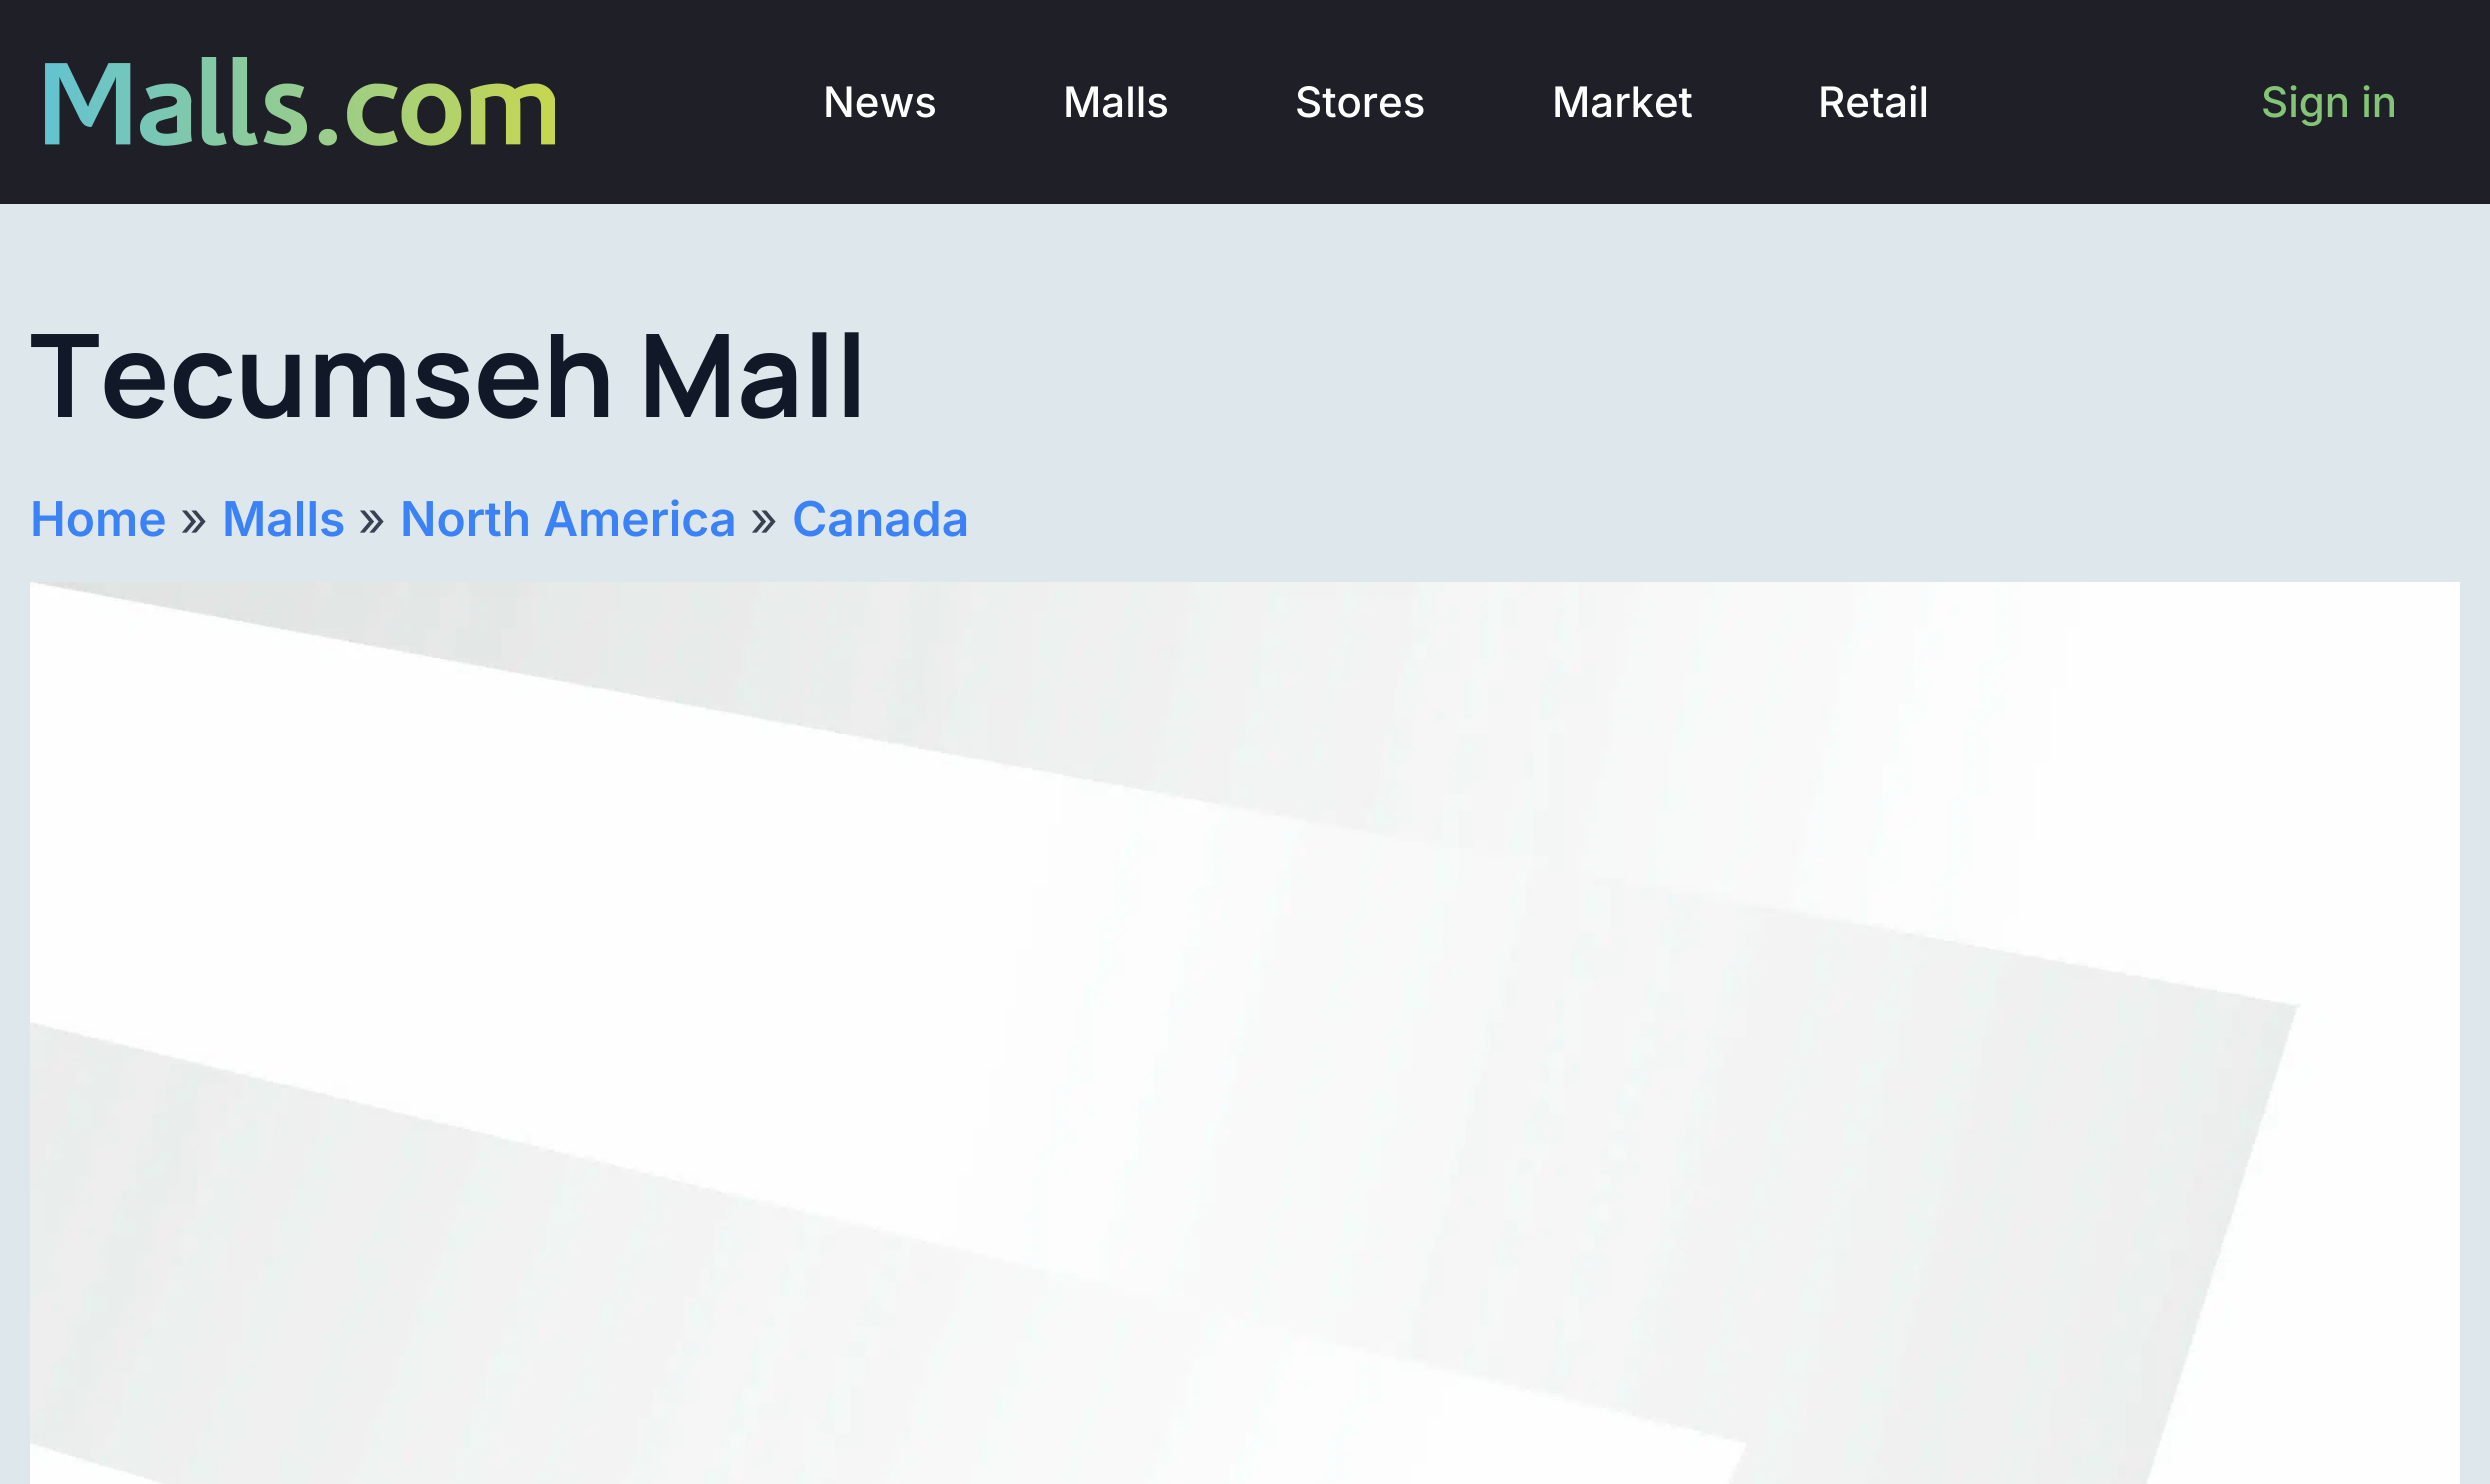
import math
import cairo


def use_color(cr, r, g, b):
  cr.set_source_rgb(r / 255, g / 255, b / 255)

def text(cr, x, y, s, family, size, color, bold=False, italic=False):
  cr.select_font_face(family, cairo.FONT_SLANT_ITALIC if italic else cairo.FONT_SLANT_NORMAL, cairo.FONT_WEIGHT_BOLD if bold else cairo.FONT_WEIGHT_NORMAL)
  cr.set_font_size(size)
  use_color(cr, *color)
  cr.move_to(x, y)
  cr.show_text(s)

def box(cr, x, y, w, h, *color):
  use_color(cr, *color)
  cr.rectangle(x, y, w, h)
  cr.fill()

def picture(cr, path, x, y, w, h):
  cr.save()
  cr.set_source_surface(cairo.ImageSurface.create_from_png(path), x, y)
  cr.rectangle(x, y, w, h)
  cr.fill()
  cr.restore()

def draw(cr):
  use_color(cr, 221, 231, 236)
  cr.paint()
  box(cr, 0, 0, 2490, 204, 30, 31, 39)
  picture(cr, "img_01.png", 45, 57, 510, 89)
  picture(cr, "img_02.png", 30, 582, 2430, 902)
  text(cr, 823, 117, "News", "Inter Medium", 42, (255, 255, 255))
  text(cr, 1063, 117, "Malls", "Inter Medium", 42, (255, 255, 255))
  text(cr, 1295, 117, "Stores", "Inter Medium", 42, (255, 255, 255))
  text(cr, 1552, 117, "Market", "Inter Medium", 42, (255, 255, 255))
  text(cr, 1818, 117, "Retail", "Inter Medium", 42, (255, 255, 255))
  text(cr, 2261, 117, "Sign in", "Inter Medium", 42, (131, 196, 118))
  text(cr, 30, 417, "Tecumseh Mall", "Manrope", 115.25, (17, 24, 39), bold=True)
  text(cr, 30, 536, "Home", "Inter SemiBold", 48, (59, 130, 246))
  text(cr, 180, 536, "»", "Inter", 48, (55, 65, 81))
  text(cr, 222, 536, "Malls", "Inter SemiBold", 48, (59, 130, 246))
  text(cr, 358, 536, "»", "Inter", 48, (55, 65, 81))
  text(cr, 400, 536, "North America", "Inter SemiBold", 48, (59, 130, 246))
  text(cr, 750, 536, "»", "Inter", 48, (55, 65, 81))
  text(cr, 792, 536, "Canada", "Inter SemiBold", 48, (59, 130, 246))


surface = cairo.ImageSurface(cairo.FORMAT_RGB24, 2490, 1484)
cr = cairo.Context(surface)
options = cairo.FontOptions()
options.set_hint_metrics(cairo.HINT_METRICS_OFF)
options.set_hint_style(cairo.HINT_STYLE_NONE)
cr.set_font_options(options)
cr.set_miter_limit(4)
draw(cr)
surface.write_to_png("out.png")
